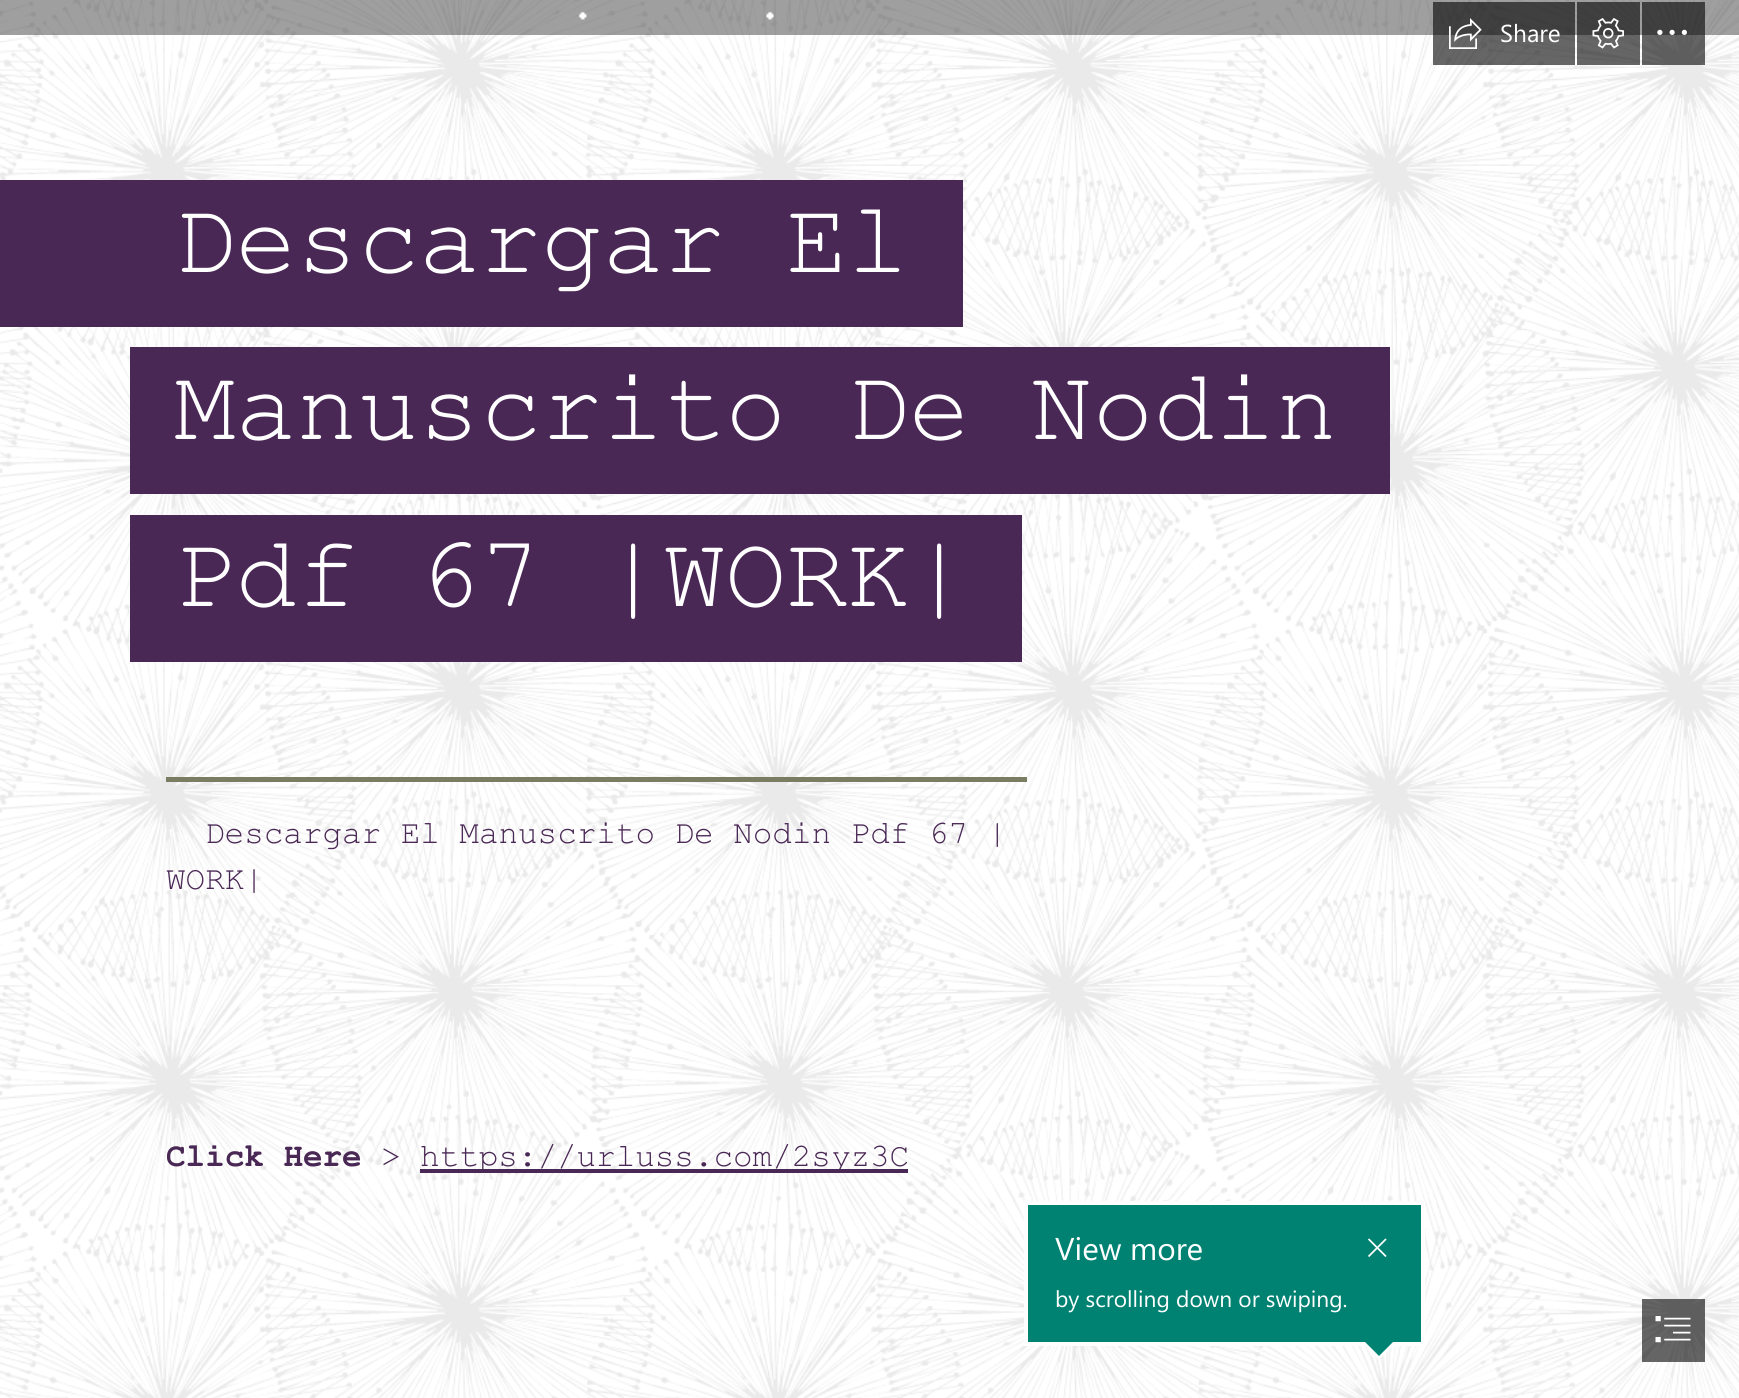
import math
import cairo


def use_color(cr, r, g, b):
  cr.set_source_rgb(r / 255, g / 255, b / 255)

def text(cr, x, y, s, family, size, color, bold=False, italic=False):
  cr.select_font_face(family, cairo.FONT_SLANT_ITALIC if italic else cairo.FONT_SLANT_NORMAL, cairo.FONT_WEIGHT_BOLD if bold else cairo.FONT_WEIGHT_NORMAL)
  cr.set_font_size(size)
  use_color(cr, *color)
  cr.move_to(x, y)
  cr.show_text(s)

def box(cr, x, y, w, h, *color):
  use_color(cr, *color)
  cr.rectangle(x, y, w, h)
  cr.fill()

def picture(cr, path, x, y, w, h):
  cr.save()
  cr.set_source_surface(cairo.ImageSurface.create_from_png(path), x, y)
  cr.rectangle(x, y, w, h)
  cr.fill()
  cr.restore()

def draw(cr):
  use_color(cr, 234, 234, 234)
  cr.paint()
  picture(cr, "img_05.png", 0, 0, 1739, 1398)
  cr.set_source_rgba(0.251, 0.251, 0.251, 0.5)
  cr.rectangle(0, 0, 1739, 35)
  cr.fill()
  cr.set_source_rgba(0, 0, 0, 0.6)
  cr.rectangle(1433, 2, 142, 63)
  cr.fill()
  picture(cr, "img_01.png", 1449, 18, 33, 31)
  cr.rectangle(1577, 2, 63, 63)
  cr.fill()
  picture(cr, "img_02.png", 1592, 18, 32, 31)
  cr.rectangle(1642, 2, 63, 63)
  cr.fill()
  picture(cr, "img_03.png", 1657, 29, 30, 6)
  picture(cr, "img_04.png", 578, 11, 196, 9)
  box(cr, 0, 180, 963, 147, 74, 40, 85)
  box(cr, 130, 347, 1260, 147, 74, 40, 85)
  box(cr, 130, 515, 892, 147, 74, 40, 85)
  box(cr, 166, 777, 861, 5, 122, 125, 97)
  box(cr, 420, 1169, 488, 4, 74, 40, 85)
  use_color(cr, 0, 130, 114)
  cr.rectangle(1026, 1203, 397, 141)
  cr.fill_preserve()
  use_color(cr, 255, 255, 255)
  cr.set_line_width(4)
  cr.stroke()
  picture(cr, "img_06.png", 1368, 1238, 19, 19)
  cr.new_path()
  cr.move_to(1361.5, 1342)
  cr.line_to(1396.5, 1342)
  cr.line_to(1379, 1360)
  cr.close_path()
  cr.fill()
  use_color(cr, 0, 130, 114)
  cr.new_path()
  cr.move_to(1365, 1342)
  cr.line_to(1393, 1342)
  cr.line_to(1379, 1356)
  cr.close_path()
  cr.fill()
  cr.set_source_rgba(0, 0, 0, 0.6)
  cr.rectangle(1642, 1299, 63, 63)
  cr.fill()
  picture(cr, "img_07.png", 1655, 1316, 36, 27)
  text(cr, 1500, 42, "Share", "Segoe UI", 24.5, (255, 255, 255))
  text(cr, 174, 272, "Descargar El", "Courier New", 102, (255, 255, 255))
  text(cr, 174, 439, "Manuscrito De Nodin", "Courier New", 102, (255, 255, 255))
  text(cr, 174, 606, "Pdf 67 |WORK|", "Courier New", 102, (255, 255, 255))
  text(cr, 205, 843, "Descargar El Manuscrito De Nodin Pdf 67 |", "Courier New", 32.6, (74, 40, 85))
  text(cr, 166, 889, "WORK|", "Courier New", 32.6, (74, 40, 85))
  text(cr, 166, 1166, "Click Here", "Courier New", 32.6, (74, 40, 85), bold=True)
  text(cr, 381, 1166, ">", "Courier New", 32.6, (74, 40, 85))
  text(cr, 420, 1166, "https://urluss.com/2syz3C", "Courier New", 32.6, (74, 40, 85))
  text(cr, 1055, 1260, "View more", "Segoe UI", 31.5, (255, 255, 255))
  text(cr, 1055, 1307, "by scrolling down or swiping.", "Segoe UI", 22.75, (255, 255, 255))


surface = cairo.ImageSurface(cairo.FORMAT_RGB24, 1739, 1398)
cr = cairo.Context(surface)
options = cairo.FontOptions()
options.set_hint_metrics(cairo.HINT_METRICS_OFF)
options.set_hint_style(cairo.HINT_STYLE_NONE)
cr.set_font_options(options)
cr.set_miter_limit(4)
draw(cr)
surface.write_to_png("out.png")
